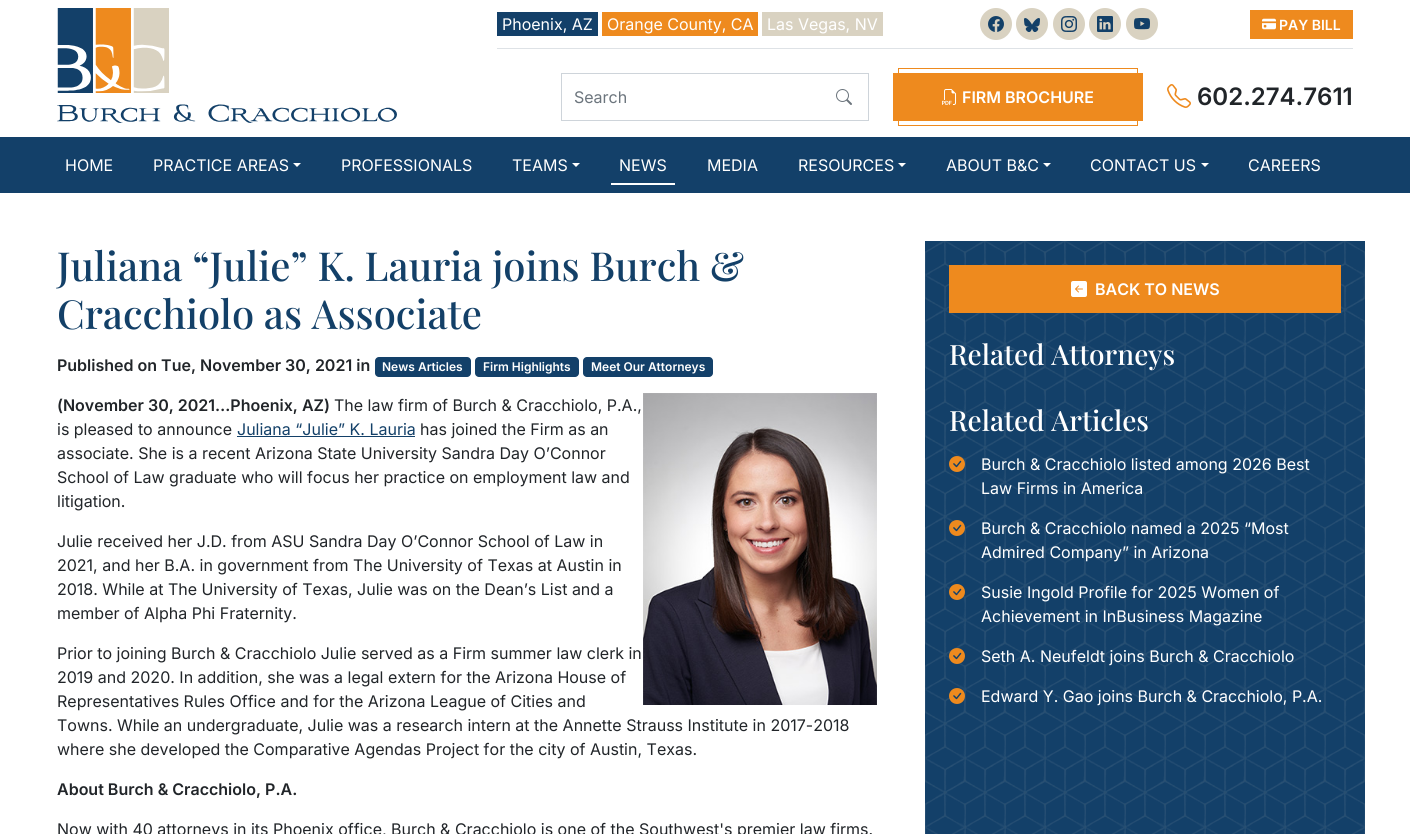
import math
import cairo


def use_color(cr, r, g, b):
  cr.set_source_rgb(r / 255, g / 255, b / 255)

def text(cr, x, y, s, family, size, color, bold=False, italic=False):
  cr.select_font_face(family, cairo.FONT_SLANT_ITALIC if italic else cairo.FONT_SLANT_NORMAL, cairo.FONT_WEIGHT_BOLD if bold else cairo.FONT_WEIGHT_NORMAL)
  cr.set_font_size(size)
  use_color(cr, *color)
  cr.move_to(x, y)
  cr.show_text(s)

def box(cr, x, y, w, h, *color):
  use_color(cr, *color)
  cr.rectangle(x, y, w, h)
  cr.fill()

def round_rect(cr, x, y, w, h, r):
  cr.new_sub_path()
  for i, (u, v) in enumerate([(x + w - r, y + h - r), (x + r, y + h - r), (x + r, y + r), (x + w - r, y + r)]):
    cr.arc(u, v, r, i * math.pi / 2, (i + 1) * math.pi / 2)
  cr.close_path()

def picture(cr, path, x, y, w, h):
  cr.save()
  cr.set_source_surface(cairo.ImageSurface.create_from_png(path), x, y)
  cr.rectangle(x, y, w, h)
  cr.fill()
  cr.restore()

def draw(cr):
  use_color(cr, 255, 255, 255)
  cr.paint()
  picture(cr, "img_01.png", 57, 8, 340, 115)
  box(cr, 497, 48, 856, 1, 222, 226, 230)
  box(cr, 497, 12, 101, 24, 19, 64, 105)
  box(cr, 602, 12, 156, 24, 238, 138, 30)
  box(cr, 762, 12, 121, 24, 217, 210, 193)
  cr.arc(996, 24, 16, 0, 2 * math.pi)
  cr.fill()
  picture(cr, "img_02.png", 988, 16, 16, 16)
  cr.arc(1032, 24, 16, 0, 2 * math.pi)
  cr.fill()
  picture(cr, "img_03.png", 1024, 18, 16, 14)
  cr.arc(1069, 24, 16, 0, 2 * math.pi)
  cr.fill()
  picture(cr, "img_04.png", 1061, 16, 16, 16)
  cr.arc(1105, 24, 16, 0, 2 * math.pi)
  cr.fill()
  picture(cr, "img_05.png", 1097, 16, 16, 16)
  cr.arc(1142, 24, 16, 0, 2 * math.pi)
  cr.fill()
  picture(cr, "img_06.png", 1134, 18, 16, 12)
  box(cr, 1250, 10, 103, 29, 238, 138, 30)
  picture(cr, "img_07.png", 1262, 18, 14, 12)
  box(cr, 561, 73, 308, 1, 206, 212, 218)
  box(cr, 561, 120, 259, 1, 206, 212, 218)
  box(cr, 561, 73, 1, 48, 206, 212, 218)
  box(cr, 868, 73, 1, 48, 206, 212, 218)
  box(cr, 819, 120, 50, 1, 206, 212, 218)
  picture(cr, "img_08.png", 836, 89, 16, 16)
  box(cr, 893, 73, 250, 48, 238, 138, 30)
  picture(cr, "img_09.png", 942, 89, 15, 16)
  cr.rectangle(898.5, 68.5, 239, 57)
  cr.set_line_width(1)
  cr.stroke()
  picture(cr, "img_10.png", 1167, 84, 24, 24)
  box(cr, 0, 137, 1410, 56, 19, 64, 105)
  use_color(cr, 255, 255, 255)
  cr.new_path()
  cr.move_to(293, 163)
  cr.line_to(301, 163)
  cr.line_to(297, 167)
  cr.close_path()
  cr.fill()
  cr.new_path()
  cr.move_to(572, 163)
  cr.line_to(580, 163)
  cr.line_to(576, 167)
  cr.close_path()
  cr.fill()
  box(cr, 611, 183, 64, 2, 255, 255, 255)
  cr.new_path()
  cr.move_to(898, 163)
  cr.line_to(906, 163)
  cr.line_to(902, 167)
  cr.close_path()
  cr.fill()
  cr.new_path()
  cr.move_to(1043, 163)
  cr.line_to(1051, 163)
  cr.line_to(1047, 167)
  cr.close_path()
  cr.fill()
  cr.new_path()
  cr.move_to(1201, 163)
  cr.line_to(1209, 163)
  cr.line_to(1205, 167)
  cr.close_path()
  cr.fill()
  use_color(cr, 19, 64, 105)
  round_rect(cr, 375, 357, 96, 20, 4)
  cr.fill()
  round_rect(cr, 475, 357, 104, 20, 4)
  cr.fill()
  round_rect(cr, 583, 357, 130, 20, 4)
  cr.fill()
  picture(cr, "img_11.png", 643, 393, 234, 312)
  box(cr, 237, 436, 178, 1, 19, 64, 104)
  box(cr, 925, 241, 440, 593, 19, 64, 105)
  picture(cr, "img_12.png", 925, 241, 440, 593)
  box(cr, 949, 265, 392, 48, 238, 138, 30)
  picture(cr, "img_13.png", 1071, 281, 16, 16)
  picture(cr, "img_14.png", 949, 456, 16, 16)
  picture(cr, "img_15.png", 949, 520, 16, 16)
  picture(cr, "img_16.png", 949, 584, 16, 16)
  picture(cr, "img_17.png", 949, 648, 16, 16)
  picture(cr, "img_18.png", 949, 688, 16, 16)
  text(cr, 502, 30, "Phoenix, AZ", "Inter", 16, (255, 255, 255))
  text(cr, 607, 30, "Orange County, CA", "Inter", 16, (255, 255, 255))
  text(cr, 767, 30, "Las Vegas, NV", "Inter", 16, (255, 255, 255))
  text(cr, 1279, 30, "PAY BILL", "Inter SemiBold", 14, (255, 255, 255))
  text(cr, 574, 103, "Search", "Inter", 16, (108, 117, 125))
  text(cr, 962, 103, "FIRM BROCHURE", "Inter SemiBold", 16, (255, 255, 255))
  text(cr, 1197, 105, "602.274.7611", "Inter SemiBold", 24, (33, 37, 41))
  text(cr, 65, 171, "HOME", "Inter", 16, (255, 255, 255))
  text(cr, 153, 171, "PRACTICE AREAS", "Inter", 16, (255, 255, 255))
  text(cr, 341, 171, "PROFESSIONALS", "Inter", 16, (255, 255, 255))
  text(cr, 512, 171, "TEAMS", "Inter", 16, (255, 255, 255))
  text(cr, 619, 171, "NEWS", "Inter", 16, (255, 255, 255))
  text(cr, 707, 171, "MEDIA", "Inter", 16, (255, 255, 255))
  text(cr, 798, 171, "RESOURCES", "Inter", 16, (255, 255, 255))
  text(cr, 946, 171, "ABOUT B&C", "Inter", 16, (255, 255, 255))
  text(cr, 1090, 171, "CONTACT US", "Inter", 16, (255, 255, 255))
  text(cr, 1248, 171, "CAREERS", "Inter", 16, (255, 255, 255))
  text(cr, 57, 281, "Juliana “Julie” K. Lauria joins Burch &", "Playfair Display Medium", 40, (19, 64, 104))
  text(cr, 57, 329, "Cracchiolo as Associate", "Playfair Display Medium", 40, (19, 64, 104))
  text(cr, 57, 371, "Published on Tue, November 30, 2021 in", "Inter SemiBold", 16, (33, 37, 41))
  text(cr, 382, 371, "News Articles", "Inter SemiBold", 12, (255, 255, 255))
  text(cr, 483, 371, "Firm Highlights", "Inter SemiBold", 12, (255, 255, 255))
  text(cr, 591, 371, "Meet Our Attorneys", "Inter SemiBold", 12, (255, 255, 255))
  text(cr, 57, 411, "(November 30, 2021…Phoenix, AZ)", "Inter SemiBold", 16, (33, 37, 41))
  text(cr, 334, 411, "The law firm of Burch & Cracchiolo, P.A.,", "Inter", 16, (33, 37, 41))
  text(cr, 57, 435, "is pleased to announce", "Inter", 16, (33, 37, 41))
  text(cr, 237, 435, "Juliana “Julie” K. Lauria", "Inter", 16, (19, 64, 104))
  text(cr, 420, 435, "has joined the Firm as an", "Inter", 16, (33, 37, 41))
  text(cr, 57, 459, "associate. She is a recent Arizona State University Sandra Day O’Connor", "Inter", 16, (33, 37, 41))
  text(cr, 57, 483, "School of Law graduate who will focus her practice on employment law and", "Inter", 16, (33, 37, 41))
  text(cr, 57, 507, "litigation.", "Inter", 16, (33, 37, 41))
  text(cr, 57, 547, "Julie received her J.D. from ASU Sandra Day O’Connor School of Law in", "Inter", 16, (33, 37, 41))
  text(cr, 57, 571, "2021, and her B.A. in government from The University of Texas at Austin in", "Inter", 16, (33, 37, 41))
  text(cr, 57, 595, "2018. While at The University of Texas, Julie was on the Dean’s List and a", "Inter", 16, (33, 37, 41))
  text(cr, 57, 619, "member of Alpha Phi Fraternity.", "Inter", 16, (33, 37, 41))
  text(cr, 57, 659, "Prior to joining Burch & Cracchiolo Julie served as a Firm summer law clerk in", "Inter", 16, (33, 37, 41))
  text(cr, 57, 683, "2019 and 2020. In addition, she was a legal extern for the Arizona House of", "Inter", 16, (33, 37, 41))
  text(cr, 57, 707, "Representatives Rules Office and for the Arizona League of Cities and", "Inter", 16, (33, 37, 41))
  text(cr, 57, 731, "Towns. While an undergraduate, Julie was a research intern at the Annette Strauss Institute in 2017-2018", "Inter", 16, (33, 37, 41))
  text(cr, 57, 755, "where she developed the Comparative Agendas Project for the city of Austin, Texas.", "Inter", 16, (33, 37, 41))
  text(cr, 57, 795, "About Burch & Cracchiolo, P.A.", "Inter SemiBold", 16, (33, 37, 41))
  text(cr, 57, 835, "Now with 40 attorneys in its Phoenix office, Burch & Cracchiolo is one of the Southwest's premier law firms.", "Inter", 16, (33, 37, 41))
  text(cr, 1095, 295, "BACK TO NEWS", "Inter SemiBold", 16, (255, 255, 255))
  text(cr, 949, 365, "Related Attorneys", "Playfair Display Medium", 28, (255, 255, 255))
  text(cr, 949, 431, "Related Articles", "Playfair Display Medium", 28, (255, 255, 255))
  text(cr, 981, 470, "Burch & Cracchiolo listed among 2026 Best", "Inter", 16, (255, 255, 255))
  text(cr, 981, 494, "Law Firms in America", "Inter", 16, (255, 255, 255))
  text(cr, 981, 534, "Burch & Cracchiolo named a 2025 “Most", "Inter", 16, (255, 255, 255))
  text(cr, 981, 558, "Admired Company” in Arizona", "Inter", 16, (255, 255, 255))
  text(cr, 981, 598, "Susie Ingold Profile for 2025 Women of", "Inter", 16, (255, 255, 255))
  text(cr, 981, 622, "Achievement in InBusiness Magazine", "Inter", 16, (255, 255, 255))
  text(cr, 981, 662, "Seth A. Neufeldt joins Burch & Cracchiolo", "Inter", 16, (255, 255, 255))
  text(cr, 981, 702, "Edward Y. Gao joins Burch & Cracchiolo, P.A.", "Inter", 16, (255, 255, 255))


surface = cairo.ImageSurface(cairo.FORMAT_RGB24, 1410, 834)
cr = cairo.Context(surface)
options = cairo.FontOptions()
options.set_hint_metrics(cairo.HINT_METRICS_OFF)
options.set_hint_style(cairo.HINT_STYLE_NONE)
cr.set_font_options(options)
cr.set_miter_limit(4)
draw(cr)
surface.write_to_png("out.png")
